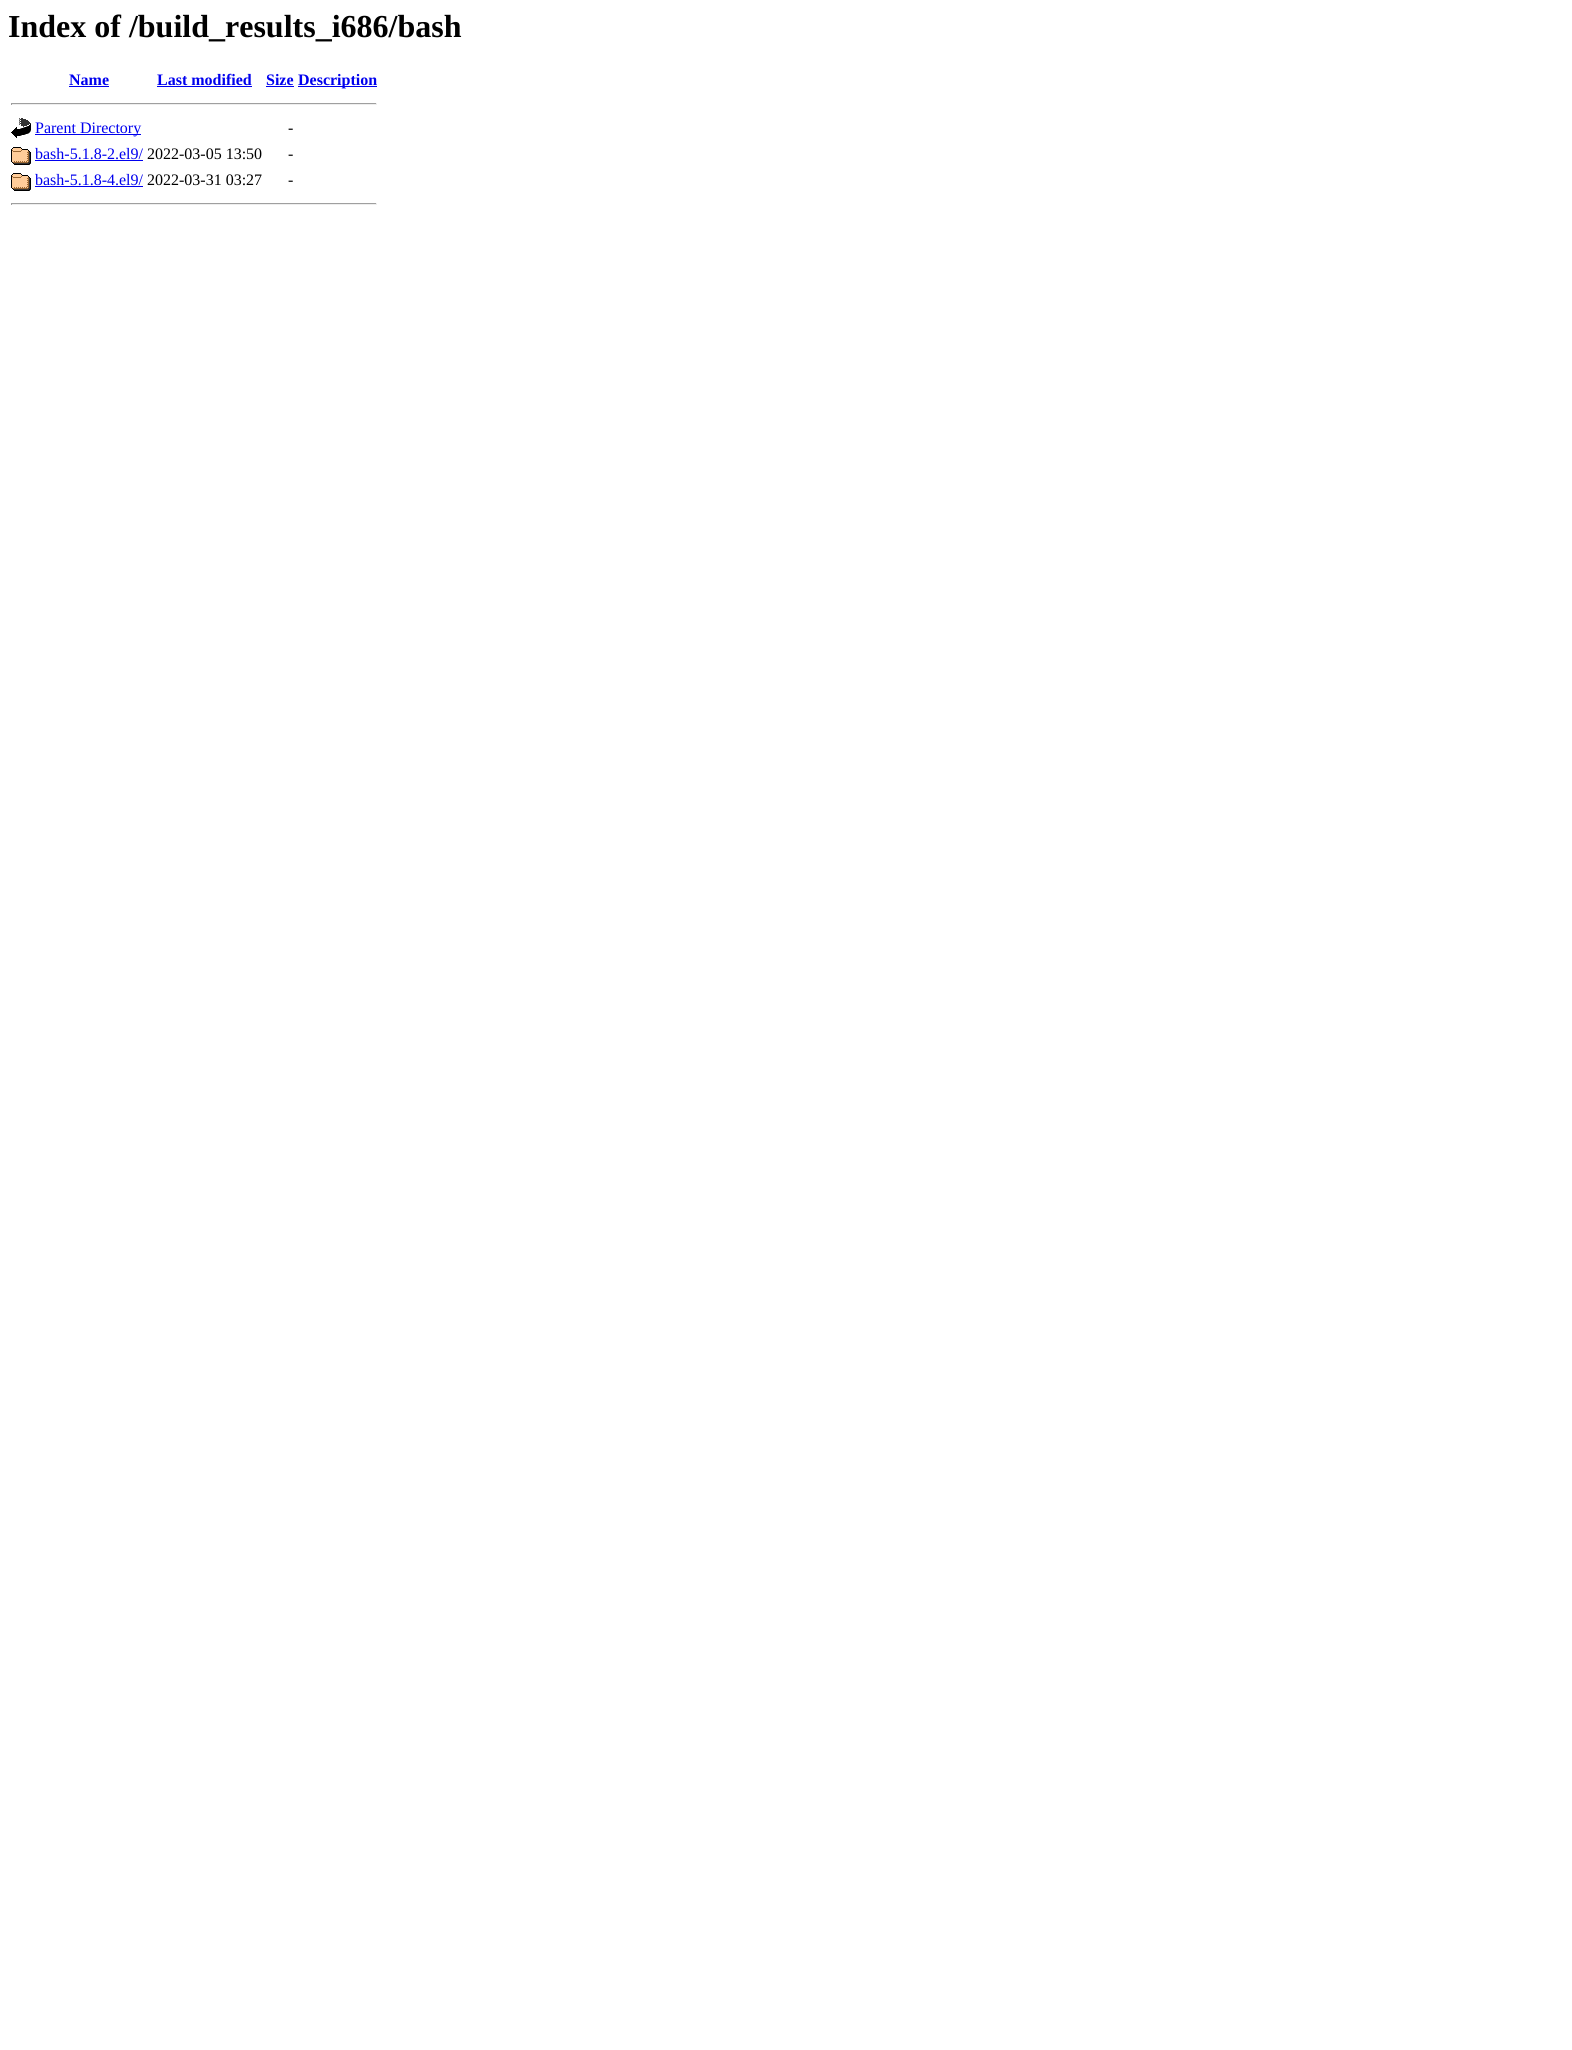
import math
import cairo


def use_color(cr, r, g, b):
  cr.set_source_rgb(r / 255, g / 255, b / 255)

def text(cr, x, y, s, family, size, color, bold=False, italic=False):
  cr.select_font_face(family, cairo.FONT_SLANT_ITALIC if italic else cairo.FONT_SLANT_NORMAL, cairo.FONT_WEIGHT_BOLD if bold else cairo.FONT_WEIGHT_NORMAL)
  cr.set_font_size(size)
  use_color(cr, *color)
  cr.move_to(x, y)
  cr.show_text(s)

def box(cr, x, y, w, h, *color):
  use_color(cr, *color)
  cr.rectangle(x, y, w, h)
  cr.fill()

def picture(cr, path, x, y, w, h):
  cr.save()
  cr.set_source_surface(cairo.ImageSurface.create_from_png(path), x, y)
  cr.rectangle(x, y, w, h)
  cr.fill()
  cr.restore()

def draw(cr):
  use_color(cr, 255, 255, 255)
  cr.paint()
  box(cr, 69, 86, 40, 1, 0, 0, 238)
  box(cr, 157, 86, 95, 1, 0, 0, 238)
  box(cr, 266, 86, 28, 1, 0, 0, 238)
  box(cr, 298, 86, 79, 1, 0, 0, 238)
  box(cr, 11, 103, 366, 1, 159, 159, 159)
  box(cr, 376, 103, 1, 2, 238, 238, 238)
  box(cr, 11, 104, 366, 1, 238, 238, 238)
  box(cr, 11, 103, 1, 2, 159, 159, 159)
  picture(cr, "img_01.png", 11, 118, 20, 20)
  box(cr, 35, 134, 106, 1, 0, 0, 238)
  picture(cr, "img_02.png", 11, 147, 20, 18)
  box(cr, 35, 160, 108, 1, 0, 0, 238)
  picture(cr, "img_02.png", 11, 173, 20, 18)
  box(cr, 35, 186, 108, 1, 0, 0, 238)
  box(cr, 11, 203, 366, 1, 159, 159, 159)
  box(cr, 376, 203, 1, 2, 238, 238, 238)
  box(cr, 11, 204, 366, 1, 238, 238, 238)
  box(cr, 11, 203, 1, 2, 159, 159, 159)
  text(cr, 8, 37, "Index of /build_results_i686/bash", "Liberation Serif", 32, (0, 0, 0), bold=True)
  text(cr, 69, 85, "Name", "Liberation Serif", 16, (0, 0, 238), bold=True)
  text(cr, 157, 85, "Last modified", "Liberation Serif", 16, (0, 0, 238), bold=True)
  text(cr, 266, 85, "Size", "Liberation Serif", 16, (0, 0, 238), bold=True)
  text(cr, 298, 85, "Description", "Liberation Serif", 16, (0, 0, 238), bold=True)
  text(cr, 35, 133, "Parent Directory", "Liberation Serif", 16, (0, 0, 238))
  text(cr, 288, 133, "-", "Liberation Serif", 16, (0, 0, 0))
  text(cr, 35, 159, "bash-5.1.8-2.el9/", "Liberation Serif", 16, (0, 0, 238))
  text(cr, 147, 159, "2022-03-05 13:50", "Liberation Serif", 16, (0, 0, 0))
  text(cr, 288, 159, "-", "Liberation Serif", 16, (0, 0, 0))
  text(cr, 35, 185, "bash-5.1.8-4.el9/", "Liberation Serif", 16, (0, 0, 238))
  text(cr, 147, 185, "2022-03-31 03:27", "Liberation Serif", 16, (0, 0, 0))
  text(cr, 288, 185, "-", "Liberation Serif", 16, (0, 0, 0))


surface = cairo.ImageSurface(cairo.FORMAT_RGB24, 1572, 2050)
cr = cairo.Context(surface)
options = cairo.FontOptions()
options.set_hint_metrics(cairo.HINT_METRICS_OFF)
options.set_hint_style(cairo.HINT_STYLE_NONE)
cr.set_font_options(options)
cr.set_miter_limit(4)
draw(cr)
surface.write_to_png("out.png")
